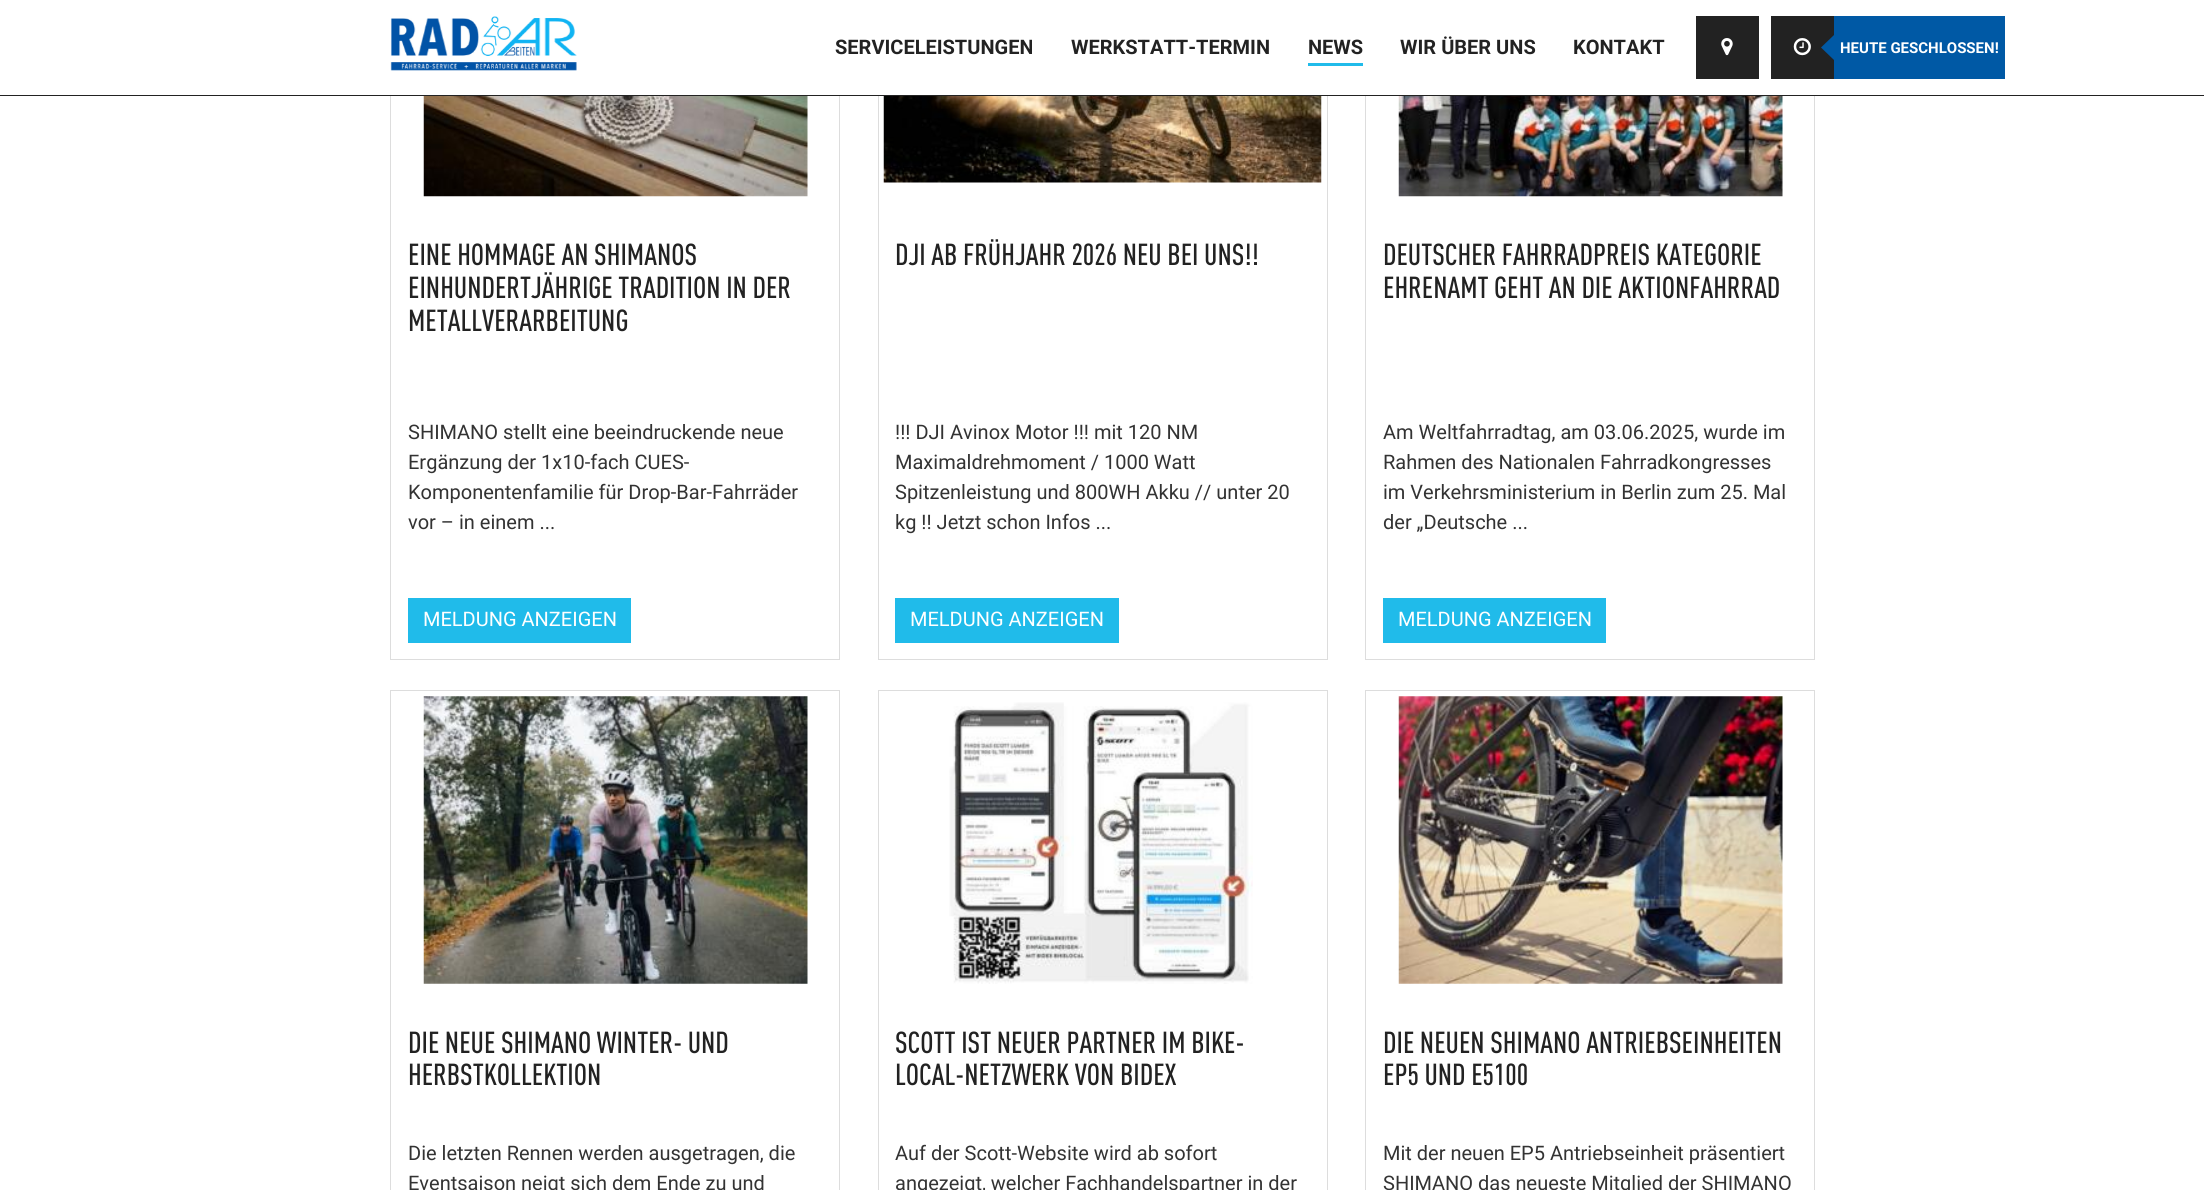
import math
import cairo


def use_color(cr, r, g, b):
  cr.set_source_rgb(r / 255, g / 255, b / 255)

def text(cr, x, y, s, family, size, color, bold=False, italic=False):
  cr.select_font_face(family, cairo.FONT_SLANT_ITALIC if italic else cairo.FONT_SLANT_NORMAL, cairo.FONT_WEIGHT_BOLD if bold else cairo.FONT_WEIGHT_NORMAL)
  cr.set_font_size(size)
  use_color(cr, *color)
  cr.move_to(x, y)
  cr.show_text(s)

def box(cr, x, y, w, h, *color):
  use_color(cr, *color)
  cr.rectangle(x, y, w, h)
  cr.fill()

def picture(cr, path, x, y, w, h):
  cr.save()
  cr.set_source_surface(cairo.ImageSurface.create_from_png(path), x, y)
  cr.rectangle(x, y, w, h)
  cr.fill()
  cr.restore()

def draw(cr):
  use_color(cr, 255, 255, 255)
  cr.paint()
  cr.rectangle(390.5, -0.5, 449, 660)
  use_color(cr, 221, 221, 221)
  cr.set_line_width(1)
  cr.stroke()
  cr.rectangle(878.5, -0.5, 449, 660)
  cr.stroke()
  cr.rectangle(1365.5, -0.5, 449, 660)
  cr.stroke()
  box(cr, 390, 0, 1425, 95, 255, 255, 255)
  box(cr, 0, 95, 2204, 1, 34, 34, 34)
  picture(cr, "img_01.png", 390, 16, 187, 55)
  box(cr, 1308, 63, 55, 3, 32, 187, 234)
  box(cr, 1696, 16, 63, 63, 34, 34, 34)
  picture(cr, "img_02.png", 1721, 38, 12, 18)
  box(cr, 1771, 16, 63, 63, 34, 34, 34)
  picture(cr, "img_03.png", 1793, 38, 18, 18)
  box(cr, 1834, 16, 171, 63, 0, 89, 165)
  cr.new_path()
  cr.move_to(1834, 35)
  cr.line_to(1834, 60)
  cr.line_to(1821, 47.5)
  cr.close_path()
  cr.fill()
  picture(cr, "img_04.png", 423, 96, 385, 101)
  box(cr, 408, 598, 223, 45, 32, 187, 234)
  picture(cr, "img_05.png", 883, 96, 439, 87)
  box(cr, 895, 598, 224, 45, 32, 187, 234)
  picture(cr, "img_06.png", 1398, 96, 385, 101)
  box(cr, 1383, 598, 223, 45, 32, 187, 234)
  cr.rectangle(390.5, 690.5, 449, 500)
  use_color(cr, 221, 221, 221)
  cr.stroke()
  picture(cr, "img_07.png", 423, 696, 385, 288)
  cr.rectangle(878.5, 690.5, 449, 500)
  cr.stroke()
  picture(cr, "img_08.png", 949, 702, 304, 282)
  cr.rectangle(1365.5, 690.5, 449, 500)
  cr.stroke()
  picture(cr, "img_09.png", 1398, 696, 385, 288)
  text(cr, 835, 54, "SERVICELEISTUNGEN", "Roboto", 20, (34, 34, 34), bold=True)
  text(cr, 1071, 54, "WERKSTATT-TERMIN", "Roboto", 20, (34, 34, 34), bold=True)
  text(cr, 1308, 54, "NEWS", "Roboto", 20, (34, 34, 34), bold=True)
  text(cr, 1400, 54, "WIR ÜBER UNS", "Roboto", 20, (34, 34, 34), bold=True)
  text(cr, 1573, 54, "KONTAKT", "Roboto", 20, (34, 34, 34), bold=True)
  text(cr, 1840, 53, "HEUTE GESCHLOSSEN!", "Roboto", 15, (255, 255, 255), bold=True)
  text(cr, 408, 265, "EINE HOMMAGE AN SHIMANOS", "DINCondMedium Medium", 30, (34, 34, 34))
  text(cr, 408, 298, "EINHUNDERTJÄHRIGE TRADITION IN DER", "DINCondMedium Medium", 30, (34, 34, 34))
  text(cr, 408, 331, "METALLVERARBEITUNG", "DINCondMedium Medium", 30, (34, 34, 34))
  text(cr, 408, 439, "SHIMANO stellt eine beeindruckende neue", "Roboto", 20, (51, 51, 51))
  text(cr, 408, 469, "Ergänzung der 1x10-fach CUES-", "Roboto", 20, (51, 51, 51))
  text(cr, 408, 499, "Komponentenfamilie für Drop-Bar-Fahrräder", "Roboto", 20, (51, 51, 51))
  text(cr, 408, 529, "vor – in einem ...", "Roboto", 20, (51, 51, 51))
  text(cr, 423, 626, "MELDUNG ANZEIGEN", "Roboto", 20, (255, 255, 255))
  text(cr, 895, 265, "DJI AB FRÜHJAHR 2026 NEU BEI UNS!!", "DINCondMedium Medium", 30, (34, 34, 34))
  text(cr, 895, 439, "!!! DJI Avinox Motor !!! mit 120 NM", "Roboto", 20, (51, 51, 51))
  text(cr, 895, 469, "Maximaldrehmoment / 1000 Watt", "Roboto", 20, (51, 51, 51))
  text(cr, 895, 499, "Spitzenleistung und 800WH Akku // unter 20", "Roboto", 20, (51, 51, 51))
  text(cr, 895, 529, "kg !! Jetzt schon Infos ...", "Roboto", 20, (51, 51, 51))
  text(cr, 910, 626, "MELDUNG ANZEIGEN", "Roboto", 20, (255, 255, 255))
  text(cr, 1383, 265, "DEUTSCHER FAHRRADPREIS KATEGORIE", "DINCondMedium Medium", 30, (34, 34, 34))
  text(cr, 1383, 298, "EHRENAMT GEHT AN DIE AKTIONFAHRRAD", "DINCondMedium Medium", 30, (34, 34, 34))
  text(cr, 1383, 439, "Am Weltfahrradtag, am 03.06.2025, wurde im", "Roboto", 20, (51, 51, 51))
  text(cr, 1383, 469, "Rahmen des Nationalen Fahrradkongresses", "Roboto", 20, (51, 51, 51))
  text(cr, 1383, 499, "im Verkehrsministerium in Berlin zum 25. Mal", "Roboto", 20, (51, 51, 51))
  text(cr, 1383, 529, "der „Deutsche ...", "Roboto", 20, (51, 51, 51))
  text(cr, 1398, 626, "MELDUNG ANZEIGEN", "Roboto", 20, (255, 255, 255))
  text(cr, 408, 1053, "DIE NEUE SHIMANO WINTER- UND", "DINCondMedium Medium", 30, (34, 34, 34))
  text(cr, 408, 1085, "HERBSTKOLLEKTION", "DINCondMedium Medium", 30, (34, 34, 34))
  text(cr, 408, 1160, "Die letzten Rennen werden ausgetragen, die", "Roboto", 20, (51, 51, 51))
  text(cr, 408, 1190, "Eventsaison neigt sich dem Ende zu und", "Roboto", 20, (51, 51, 51))
  text(cr, 895, 1053, "SCOTT IST NEUER PARTNER IM BIKE-", "DINCondMedium Medium", 30, (34, 34, 34))
  text(cr, 895, 1085, "LOCAL-NETZWERK VON BIDEX", "DINCondMedium Medium", 30, (34, 34, 34))
  text(cr, 895, 1160, "Auf der Scott-Website wird ab sofort", "Roboto", 20, (51, 51, 51))
  text(cr, 895, 1190, "angezeigt, welcher Fachhandelspartner in der", "Roboto", 20, (51, 51, 51))
  text(cr, 1383, 1053, "DIE NEUEN SHIMANO ANTRIEBSEINHEITEN", "DINCondMedium Medium", 30, (34, 34, 34))
  text(cr, 1383, 1085, "EP5 UND E5100", "DINCondMedium Medium", 30, (34, 34, 34))
  text(cr, 1383, 1160, "Mit der neuen EP5 Antriebseinheit präsentiert", "Roboto", 20, (51, 51, 51))
  text(cr, 1383, 1190, "SHIMANO das neueste Mitglied der SHIMANO", "Roboto", 20, (51, 51, 51))


surface = cairo.ImageSurface(cairo.FORMAT_RGB24, 2204, 1190)
cr = cairo.Context(surface)
options = cairo.FontOptions()
options.set_hint_metrics(cairo.HINT_METRICS_OFF)
options.set_hint_style(cairo.HINT_STYLE_NONE)
cr.set_font_options(options)
cr.set_miter_limit(4)
draw(cr)
surface.write_to_png("out.png")
